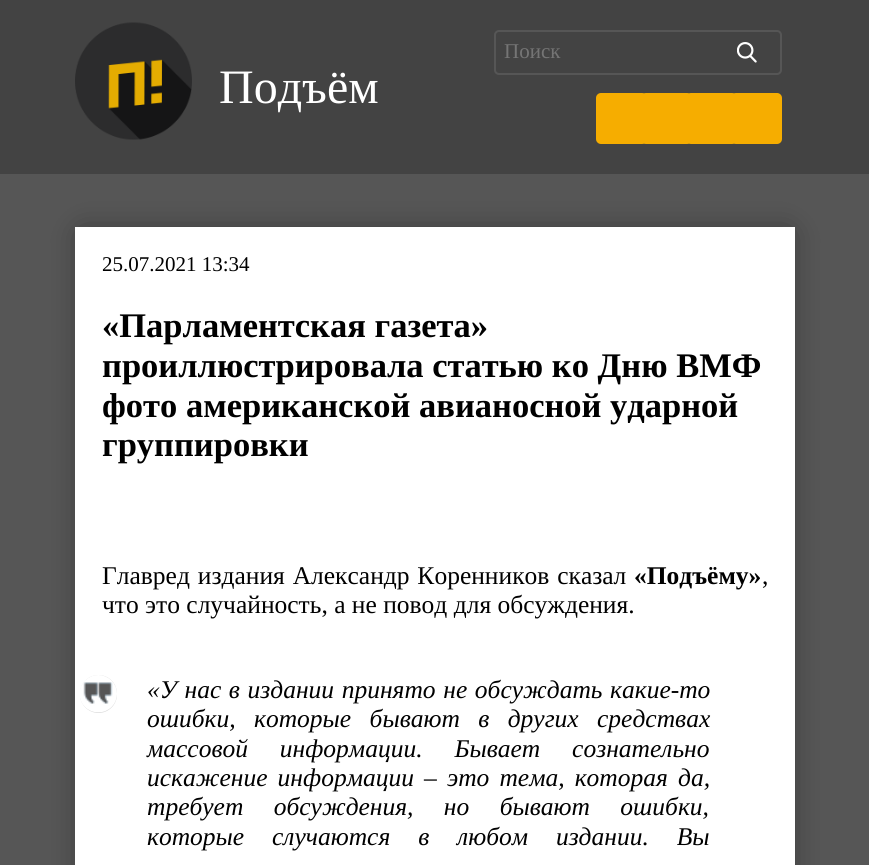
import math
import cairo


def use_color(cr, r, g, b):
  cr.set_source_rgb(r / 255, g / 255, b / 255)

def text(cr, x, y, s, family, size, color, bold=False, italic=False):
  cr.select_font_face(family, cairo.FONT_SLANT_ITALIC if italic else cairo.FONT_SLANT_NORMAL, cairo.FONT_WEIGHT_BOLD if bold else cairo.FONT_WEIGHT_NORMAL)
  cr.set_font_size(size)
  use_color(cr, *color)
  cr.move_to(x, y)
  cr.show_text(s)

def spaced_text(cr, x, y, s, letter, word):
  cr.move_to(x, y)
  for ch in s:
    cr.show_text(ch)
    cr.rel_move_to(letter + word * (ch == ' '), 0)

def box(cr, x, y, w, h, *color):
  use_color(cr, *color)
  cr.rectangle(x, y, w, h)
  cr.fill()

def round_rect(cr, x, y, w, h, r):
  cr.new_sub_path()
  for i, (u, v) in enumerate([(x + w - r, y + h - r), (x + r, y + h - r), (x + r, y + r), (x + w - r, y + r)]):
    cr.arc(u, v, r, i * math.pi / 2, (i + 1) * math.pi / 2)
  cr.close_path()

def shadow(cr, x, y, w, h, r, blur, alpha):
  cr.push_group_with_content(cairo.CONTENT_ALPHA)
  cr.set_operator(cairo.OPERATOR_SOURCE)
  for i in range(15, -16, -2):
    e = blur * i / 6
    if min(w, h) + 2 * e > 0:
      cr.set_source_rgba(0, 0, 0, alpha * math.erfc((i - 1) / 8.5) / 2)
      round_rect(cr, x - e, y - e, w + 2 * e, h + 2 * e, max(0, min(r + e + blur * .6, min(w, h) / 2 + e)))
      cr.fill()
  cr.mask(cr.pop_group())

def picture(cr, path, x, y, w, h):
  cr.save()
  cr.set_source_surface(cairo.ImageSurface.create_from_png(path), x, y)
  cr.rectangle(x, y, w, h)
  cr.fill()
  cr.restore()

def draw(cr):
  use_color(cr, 86, 86, 86)
  cr.paint()
  box(cr, 0, 0, 869, 174, 67, 67, 67)
  round_rect(cr, 495, 31, 286, 43, 4)
  use_color(cr, 86, 86, 86)
  cr.stroke()
  picture(cr, "img_01.png", 737, 42, 20, 21)
  use_color(cr, 246, 173, 0)
  round_rect(cr, 596, 93, 51, 51, 5)
  cr.fill()
  round_rect(cr, 641, 93, 51, 51, 5)
  cr.fill()
  round_rect(cr, 686, 93, 51, 51, 5)
  cr.fill()
  round_rect(cr, 731, 93, 51, 51, 5)
  cr.fill()
  picture(cr, "img_02.png", 75, 22, 117, 118)
  use_color(cr, 0, 0, 0)
  shadow(cr, 83, 234, 705, 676, 0, 15, 0.49)
  box(cr, 75, 227, 720, 638, 255, 255, 255)
  use_color(cr, 221, 221, 221)
  round_rect(cr, 80, 675, 37, 38, 18.5)
  cr.fill()
  picture(cr, "img_03.png", 80, 675, 37, 38)
  text(cr, 504, 58, "Поиск", "Liberation Serif", 21, (117, 117, 117))
  text(cr, 219, 103, "Подъём", "Liberation Serif", 48, (255, 255, 255))
  text(cr, 102, 271, "25.07.2021 13:34", "Liberation Serif", 21, (0, 0, 0))
  text(cr, 102, 337, "«Парламентская газета»", "Liberation Serif", 34.5, (0, 0, 0), bold=True)
  text(cr, 102, 377, "проиллюстрировала статью ко Дню ВМФ", "Liberation Serif", 34.5, (0, 0, 0), bold=True)
  text(cr, 102, 417, "фото американской авианосной ударной", "Liberation Serif", 34.5, (0, 0, 0), bold=True)
  text(cr, 102, 456, "группировки", "Liberation Serif", 34.5, (0, 0, 0), bold=True)
  cr.select_font_face("Liberation Serif")
  cr.set_font_size(25.5)
  spaced_text(cr, 102, 584, "Главред издания Александр Коренников сказал", 0, 1.5)
  text(cr, 634, 584, "«Подъёму»", "Liberation Serif", 25.5, (0, 0, 0), bold=True)
  text(cr, 762, 584, ",", "Liberation Serif", 25.5, (0, 0, 0))
  text(cr, 102, 613, "что это случайность, а не повод для обсуждения.", "Liberation Serif", 25.5, (0, 0, 0))
  cr.select_font_face("Liberation Serif", cairo.FONT_SLANT_ITALIC)
  spaced_text(cr, 147, 698, "«У нас в издании принято не обсуждать какие-то", 0, 1.25)
  spaced_text(cr, 147, 727, "ошибки, которые бывают в других средствах", 0, 12)
  spaced_text(cr, 147, 757, "массовой информации. Бывает сознательно", 0, 25.5)
  spaced_text(cr, 147, 786, "искажение информации – это тема, которая да,", 0, 3.75)
  spaced_text(cr, 147, 815, "требует обсуждения, но бывают ошибки,", 0, 24)
  spaced_text(cr, 147, 845, "которые случаются в любом издании. Вы", 0, 21.5)


surface = cairo.ImageSurface(cairo.FORMAT_RGB24, 869, 865)
cr = cairo.Context(surface)
options = cairo.FontOptions()
options.set_hint_metrics(cairo.HINT_METRICS_OFF)
options.set_hint_style(cairo.HINT_STYLE_NONE)
cr.set_font_options(options)
cr.set_miter_limit(4)
draw(cr)
surface.write_to_png("out.png")
